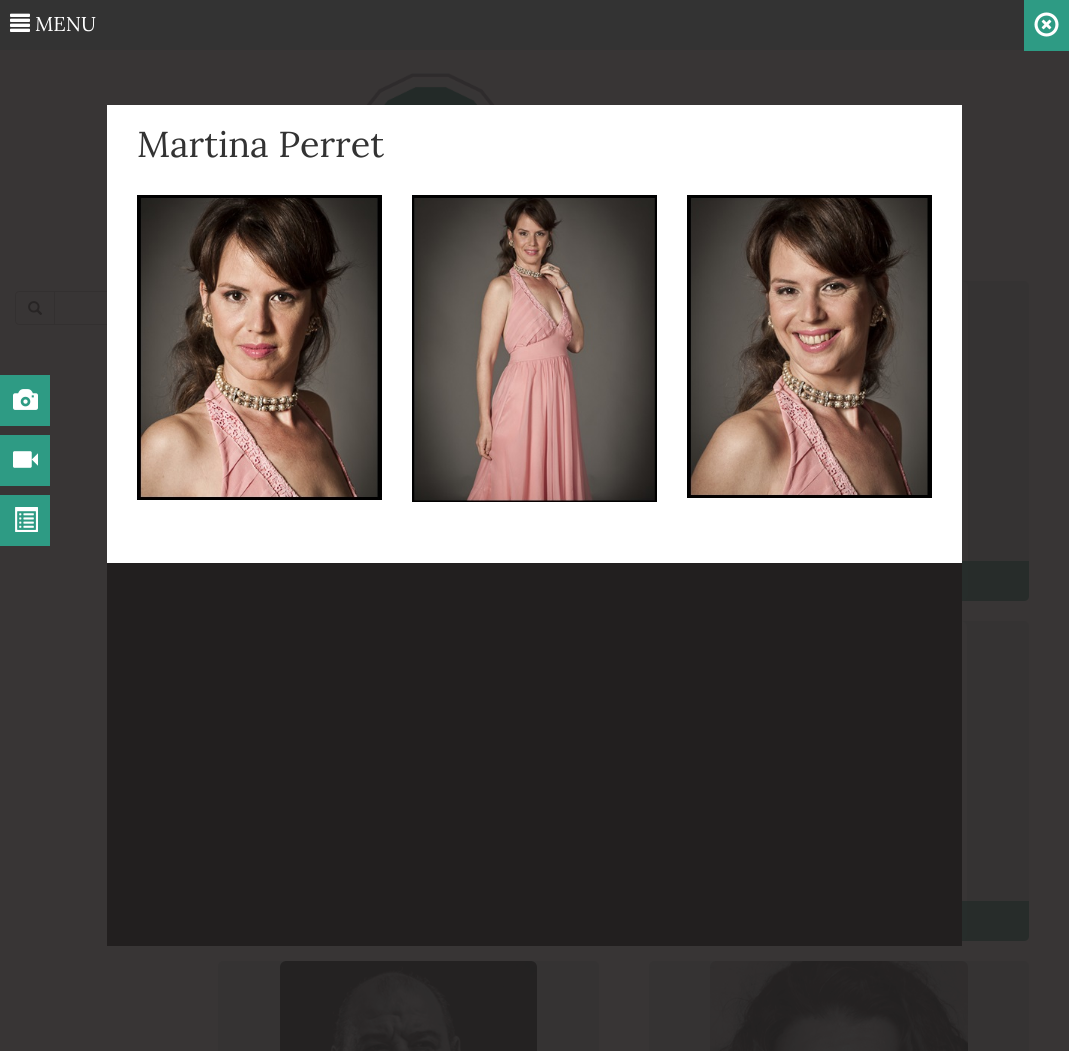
import math
import cairo


def use_color(cr, r, g, b):
  cr.set_source_rgb(r / 255, g / 255, b / 255)

def text(cr, x, y, s, family, size, color, bold=False, italic=False):
  cr.select_font_face(family, cairo.FONT_SLANT_ITALIC if italic else cairo.FONT_SLANT_NORMAL, cairo.FONT_WEIGHT_BOLD if bold else cairo.FONT_WEIGHT_NORMAL)
  cr.set_font_size(size)
  use_color(cr, *color)
  cr.move_to(x, y)
  cr.show_text(s)

def box(cr, x, y, w, h, *color):
  use_color(cr, *color)
  cr.rectangle(x, y, w, h)
  cr.fill()

def round_rect(cr, x, y, w, h, r):
  cr.new_sub_path()
  for i, (u, v) in enumerate([(x + w - r, y + h - r), (x + r, y + h - r), (x + r, y + r), (x + w - r, y + r)]):
    cr.arc(u, v, r, i * math.pi / 2, (i + 1) * math.pi / 2)
  cr.close_path()

def picture(cr, path, x, y, w, h):
  cr.save()
  cr.set_source_surface(cairo.ImageSurface.create_from_png(path), x, y)
  cr.rectangle(x, y, w, h)
  cr.fill()
  cr.restore()

def draw(cr):
  use_color(cr, 56, 53, 53)
  cr.paint()
  box(cr, 0, 0, 1024, 50, 51, 51, 51)
  picture(cr, "img_01.png", 10, 13, 20, 19)
  picture(cr, "img_02.png", 366, 73, 129, 32)
  box(cr, 1024, 0, 45, 51, 46, 155, 132)
  picture(cr, "img_03.png", 1034, 12, 25, 25)
  cr.rectangle(54.5, 291.5, 108, 33)
  use_color(cr, 51, 48, 48)
  cr.set_line_width(1)
  cr.stroke()
  use_color(cr, 53, 51, 51)
  round_rect(cr, 649, 281, 380, 320, 5)
  cr.fill()
  picture(cr, "img_08.png", 962, 281, 6, 320)
  cr.set_source_rgba(0.137, 0.169, 0.161, 0.8)
  cr.new_path()
  cr.move_to(649, 561)
  cr.line_to(1029, 561)
  cr.line_to(1029, 596)
  cr.curve_to(1029, 599, 1027, 601, 1024, 601)
  cr.line_to(654, 601)
  cr.curve_to(651, 601, 649, 599, 649, 596)
  cr.close_path()
  cr.fill()
  box(cr, 107, 105, 855, 458, 255, 255, 255)
  picture(cr, "img_04.png", 137, 195, 245, 305)
  picture(cr, "img_05.png", 412, 195, 245, 307)
  picture(cr, "img_06.png", 687, 195, 245, 303)
  use_color(cr, 53, 51, 51)
  round_rect(cr, 649, 621, 380, 320, 5)
  cr.fill()
  picture(cr, "img_09.png", 962, 621, 5, 320)
  cr.set_source_rgba(0.137, 0.169, 0.161, 0.8)
  cr.new_path()
  cr.move_to(649, 901)
  cr.line_to(1029, 901)
  cr.line_to(1029, 936)
  cr.curve_to(1029, 939, 1027, 941, 1024, 941)
  cr.line_to(654, 941)
  cr.curve_to(651, 941, 649, 939, 649, 936)
  cr.close_path()
  cr.fill()
  box(cr, 107, 563, 855, 383, 34, 31, 31)
  use_color(cr, 51, 48, 48)
  cr.set_fill_rule(cairo.FILL_RULE_EVEN_ODD)
  cr.new_path()
  cr.move_to(19, 291)
  cr.line_to(54, 291)
  cr.line_to(54, 325)
  cr.line_to(19, 325)
  cr.curve_to(17, 325, 15, 323, 15, 321)
  cr.line_to(15, 295)
  cr.curve_to(15, 293, 17, 291, 19, 291)
  cr.close_path()
  cr.move_to(19, 292)
  cr.line_to(54, 292)
  cr.line_to(54, 324)
  cr.line_to(19, 324)
  cr.curve_to(17.5, 324, 16, 322.5, 16, 321)
  cr.line_to(16, 295)
  cr.curve_to(16, 293.5, 17.5, 292, 19, 292)
  cr.close_path()
  cr.fill()
  picture(cr, "img_07.png", 28, 301, 15, 14)
  use_color(cr, 53, 51, 51)
  round_rect(cr, 218, 961, 381, 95, 5)
  cr.fill()
  picture(cr, "img_10.png", 280, 961, 257, 90)
  round_rect(cr, 649, 961, 380, 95, 5)
  cr.fill()
  picture(cr, "img_11.png", 710, 961, 258, 90)
  box(cr, 0, 375, 50, 51, 46, 155, 132)
  picture(cr, "img_12.png", 13, 389, 25, 21)
  box(cr, 0, 435, 50, 51, 46, 155, 132)
  picture(cr, "img_13.png", 13, 451, 25, 17)
  box(cr, 0, 495, 50, 51, 46, 155, 132)
  picture(cr, "img_14.png", 15, 507, 23, 25)
  text(cr, 35, 31, "MENU", "Lora", 20, (255, 255, 255))
  text(cr, 137, 157, "Martina Perret", "Lora", 36, (51, 51, 51))


surface = cairo.ImageSurface(cairo.FORMAT_RGB24, 1069, 1051)
cr = cairo.Context(surface)
options = cairo.FontOptions()
options.set_hint_metrics(cairo.HINT_METRICS_OFF)
options.set_hint_style(cairo.HINT_STYLE_NONE)
cr.set_font_options(options)
cr.set_miter_limit(4)
draw(cr)
surface.write_to_png("out.png")
